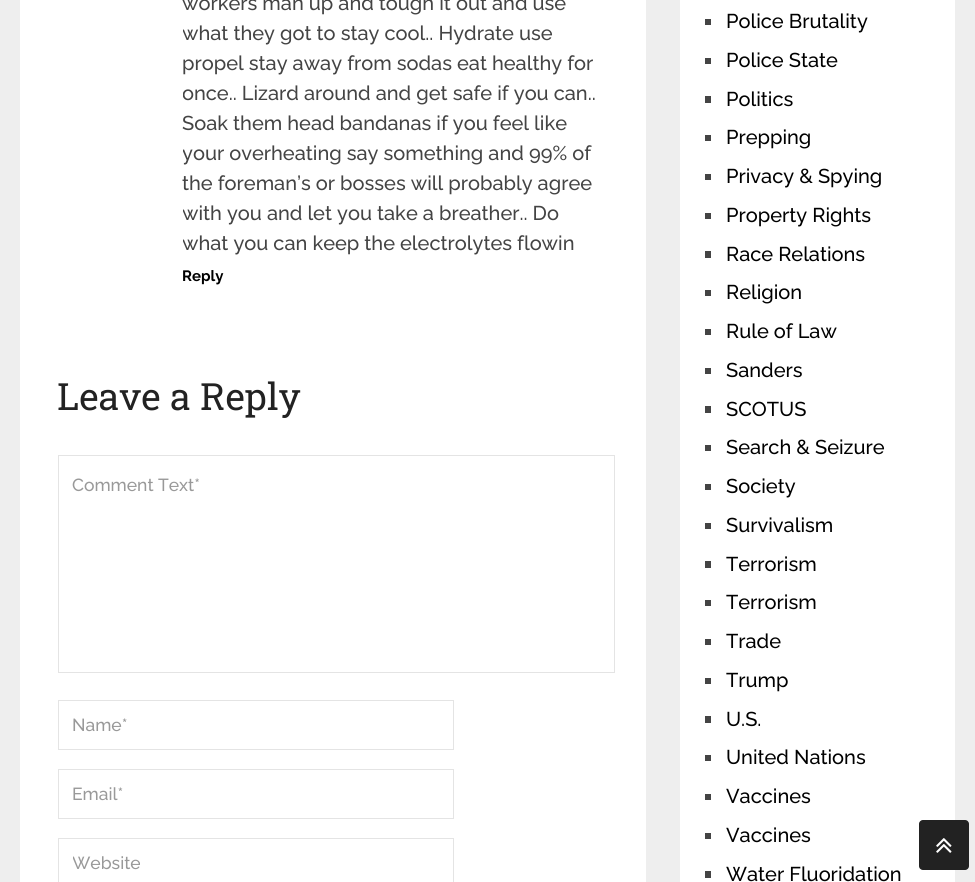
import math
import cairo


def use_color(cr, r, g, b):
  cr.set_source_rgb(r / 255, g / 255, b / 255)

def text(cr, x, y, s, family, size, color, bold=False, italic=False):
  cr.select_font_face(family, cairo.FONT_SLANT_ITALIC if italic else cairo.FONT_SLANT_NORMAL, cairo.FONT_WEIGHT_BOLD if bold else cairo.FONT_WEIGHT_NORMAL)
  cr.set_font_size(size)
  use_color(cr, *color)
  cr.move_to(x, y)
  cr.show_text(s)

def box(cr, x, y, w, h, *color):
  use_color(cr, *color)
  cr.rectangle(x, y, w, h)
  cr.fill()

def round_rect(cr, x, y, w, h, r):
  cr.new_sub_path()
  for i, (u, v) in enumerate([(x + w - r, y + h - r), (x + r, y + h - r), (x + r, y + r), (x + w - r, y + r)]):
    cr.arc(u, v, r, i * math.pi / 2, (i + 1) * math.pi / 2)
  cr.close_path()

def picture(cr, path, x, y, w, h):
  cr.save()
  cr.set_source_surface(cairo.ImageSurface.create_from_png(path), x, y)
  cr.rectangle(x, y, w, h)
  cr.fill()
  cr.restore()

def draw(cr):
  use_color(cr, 238, 238, 238)
  cr.paint()
  box(cr, 20, 0, 626, 882, 255, 255, 255)
  cr.rectangle(58.5, 455.5, 556, 217)
  use_color(cr, 228, 228, 228)
  cr.set_line_width(1)
  cr.stroke()
  cr.rectangle(58.5, 700.5, 395, 49)
  cr.stroke()
  cr.rectangle(58.5, 769.5, 395, 49)
  cr.stroke()
  cr.rectangle(58.5, 838.5, 395, 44)
  cr.stroke()
  box(cr, 680, 0, 275, 882, 255, 255, 255)
  box(cr, 705, 19, 6, 6, 68, 68, 68)
  box(cr, 705, 58, 6, 6, 68, 68, 68)
  box(cr, 705, 96, 6, 7, 68, 68, 68)
  box(cr, 705, 135, 6, 6, 68, 68, 68)
  box(cr, 705, 174, 6, 6, 68, 68, 68)
  box(cr, 705, 213, 6, 6, 68, 68, 68)
  box(cr, 705, 251, 6, 7, 68, 68, 68)
  box(cr, 705, 290, 6, 6, 68, 68, 68)
  box(cr, 705, 329, 6, 6, 68, 68, 68)
  box(cr, 705, 368, 6, 6, 68, 68, 68)
  box(cr, 705, 406, 6, 7, 68, 68, 68)
  box(cr, 705, 445, 6, 6, 68, 68, 68)
  box(cr, 705, 484, 6, 6, 68, 68, 68)
  box(cr, 705, 523, 6, 6, 68, 68, 68)
  box(cr, 705, 561, 6, 7, 68, 68, 68)
  box(cr, 705, 600, 6, 6, 68, 68, 68)
  box(cr, 705, 639, 6, 6, 68, 68, 68)
  box(cr, 705, 678, 6, 6, 68, 68, 68)
  box(cr, 705, 716, 6, 7, 68, 68, 68)
  box(cr, 705, 755, 6, 6, 68, 68, 68)
  box(cr, 705, 794, 6, 6, 68, 68, 68)
  box(cr, 705, 833, 6, 6, 68, 68, 68)
  box(cr, 705, 871, 6, 7, 68, 68, 68)
  use_color(cr, 34, 34, 34)
  round_rect(cr, 919, 820, 50, 50, 4)
  cr.fill()
  picture(cr, "img_01.png", 936, 838, 16, 15)
  text(cr, 182, 10, "workers man up and tough it out and use", "Raleway Medium", 20, (68, 68, 68))
  cr.save()
  cr.rectangle(183, 0, 426, 288)
  cr.clip()
  text(cr, 182, 40, "what they got to stay cool.. Hydrate use", "Raleway Medium", 20, (68, 68, 68))
  cr.restore()
  text(cr, 182, 70, "propel stay away from sodas eat healthy for", "Raleway Medium", 20, (68, 68, 68))
  cr.save()
  cr.rectangle(183, 0, 426, 288)
  cr.clip()
  text(cr, 182, 100, "once.. Lizard around and get safe if you can..", "Raleway Medium", 20, (68, 68, 68))
  cr.restore()
  text(cr, 182, 130, "Soak them head bandanas if you feel like", "Raleway Medium", 20, (68, 68, 68))
  cr.save()
  cr.rectangle(183, 0, 426, 288)
  cr.clip()
  text(cr, 182, 160, "your overheating say something and 99% of", "Raleway Medium", 20, (68, 68, 68))
  cr.restore()
  text(cr, 182, 190, "the foreman’s or bosses will probably agree", "Raleway Medium", 20, (68, 68, 68))
  cr.save()
  cr.rectangle(183, 0, 426, 288)
  cr.clip()
  text(cr, 182, 220, "with you and let you take a breather.. Do", "Raleway Medium", 20, (68, 68, 68))
  text(cr, 182, 250, "what you can keep the electrolytes flowin", "Raleway Medium", 20, (68, 68, 68))
  cr.restore()
  text(cr, 182, 281, "Reply", "Raleway", 15, (0, 0, 0), bold=True)
  text(cr, 57, 410, "Leave a Reply", "Roboto Slab", 37.5, (34, 34, 34))
  text(cr, 72, 491, "Comment Text*", "Raleway Medium", 17.5, (153, 153, 153))
  text(cr, 72, 731, "Name*", "Raleway Medium", 17.5, (153, 153, 153))
  text(cr, 72, 800, "Email*", "Raleway Medium", 17.5, (153, 153, 153))
  cr.save()
  cr.rectangle(73, 853, 366, 20)
  cr.clip()
  text(cr, 72, 869, "Website", "Raleway Medium", 17.5, (153, 153, 153))
  cr.restore()
  text(cr, 726, 28, "Police Brutality", "Raleway Medium", 20, (0, 0, 0))
  text(cr, 726, 67, "Police State", "Raleway Medium", 20, (0, 0, 0))
  text(cr, 726, 106, "Politics", "Raleway Medium", 20, (0, 0, 0))
  text(cr, 726, 144, "Prepping", "Raleway Medium", 20, (0, 0, 0))
  text(cr, 726, 183, "Privacy & Spying", "Raleway Medium", 20, (0, 0, 0))
  text(cr, 726, 222, "Property Rights", "Raleway Medium", 20, (0, 0, 0))
  text(cr, 726, 261, "Race Relations", "Raleway Medium", 20, (0, 0, 0))
  text(cr, 726, 299, "Religion", "Raleway Medium", 20, (0, 0, 0))
  text(cr, 726, 338, "Rule of Law", "Raleway Medium", 20, (0, 0, 0))
  text(cr, 726, 377, "Sanders", "Raleway Medium", 20, (0, 0, 0))
  text(cr, 726, 416, "SCOTUS", "Raleway Medium", 20, (0, 0, 0))
  text(cr, 726, 454, "Search & Seizure", "Raleway Medium", 20, (0, 0, 0))
  text(cr, 726, 493, "Society", "Raleway Medium", 20, (0, 0, 0))
  text(cr, 726, 532, "Survivalism", "Raleway Medium", 20, (0, 0, 0))
  text(cr, 726, 571, "Terrorism", "Raleway Medium", 20, (0, 0, 0))
  text(cr, 726, 609, "Terrorism", "Raleway Medium", 20, (0, 0, 0))
  text(cr, 726, 648, "Trade", "Raleway Medium", 20, (0, 0, 0))
  text(cr, 726, 687, "Trump", "Raleway Medium", 20, (0, 0, 0))
  text(cr, 726, 726, "U.S.", "Raleway Medium", 20, (0, 0, 0))
  text(cr, 726, 764, "United Nations", "Raleway Medium", 20, (0, 0, 0))
  text(cr, 726, 803, "Vaccines", "Raleway Medium", 20, (0, 0, 0))
  text(cr, 726, 842, "Vaccines", "Raleway Medium", 20, (0, 0, 0))
  text(cr, 726, 881, "Water Fluoridation", "Raleway Medium", 20, (0, 0, 0))


surface = cairo.ImageSurface(cairo.FORMAT_RGB24, 975, 882)
cr = cairo.Context(surface)
options = cairo.FontOptions()
options.set_hint_metrics(cairo.HINT_METRICS_OFF)
options.set_hint_style(cairo.HINT_STYLE_NONE)
cr.set_font_options(options)
cr.set_miter_limit(4)
draw(cr)
surface.write_to_png("out.png")
